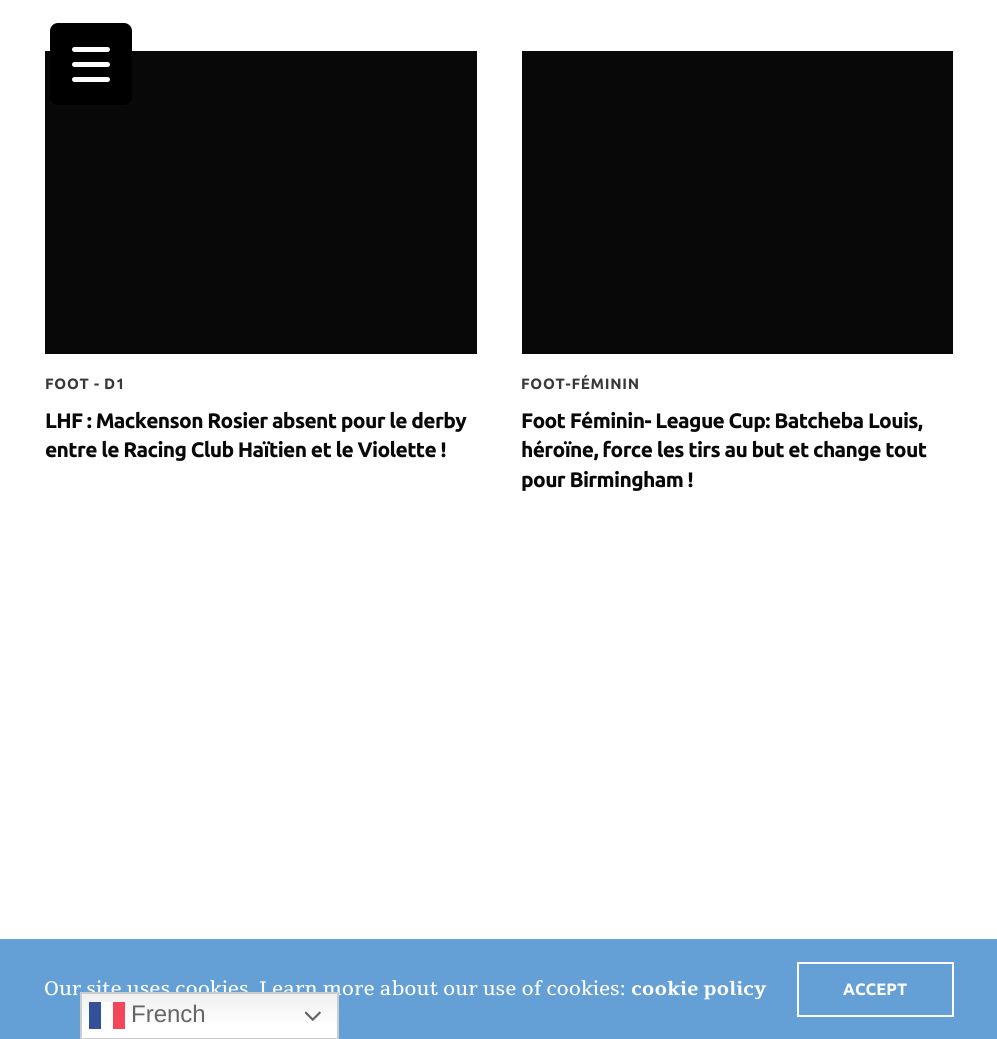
import math
import cairo


def use_color(cr, r, g, b):
  cr.set_source_rgb(r / 255, g / 255, b / 255)

def text(cr, x, y, s, family, size, color, bold=False, italic=False):
  cr.select_font_face(family, cairo.FONT_SLANT_ITALIC if italic else cairo.FONT_SLANT_NORMAL, cairo.FONT_WEIGHT_BOLD if bold else cairo.FONT_WEIGHT_NORMAL)
  cr.set_font_size(size)
  use_color(cr, *color)
  cr.move_to(x, y)
  cr.show_text(s)

def spaced_text(cr, x, y, s, letter, word):
  cr.move_to(x, y)
  for ch in s:
    cr.show_text(ch)
    cr.rel_move_to(letter + word * (ch == ' '), 0)

def box(cr, x, y, w, h, *color):
  use_color(cr, *color)
  cr.rectangle(x, y, w, h)
  cr.fill()

def round_rect(cr, x, y, w, h, r):
  cr.new_sub_path()
  for i, (u, v) in enumerate([(x + w - r, y + h - r), (x + r, y + h - r), (x + r, y + r), (x + w - r, y + r)]):
    cr.arc(u, v, r, i * math.pi / 2, (i + 1) * math.pi / 2)
  cr.close_path()

def picture(cr, path, x, y, w, h):
  cr.save()
  cr.set_source_surface(cairo.ImageSurface.create_from_png(path), x, y)
  cr.rectangle(x, y, w, h)
  cr.fill()
  cr.restore()

def draw(cr):
  use_color(cr, 255, 255, 255)
  cr.paint()
  box(cr, 45, 51, 432, 303, 8, 8, 8)
  use_color(cr, 0, 0, 0)
  round_rect(cr, 50, 23, 82, 82, 8)
  cr.fill()
  use_color(cr, 255, 255, 255)
  round_rect(cr, 72, 62, 38, 5, 2.5)
  cr.fill()
  round_rect(cr, 72, 47, 38, 5, 2.5)
  cr.fill()
  round_rect(cr, 72, 77, 38, 5, 2.5)
  cr.fill()
  box(cr, 522, 51, 431, 303, 8, 8, 8)
  box(cr, 0, 939, 997, 100, 100, 159, 214)
  cr.rectangle(798, 963, 155, 53)
  use_color(cr, 255, 255, 255)
  cr.stroke()
  cr.select_font_face("Ubuntu", cairo.FONT_SLANT_NORMAL, cairo.FONT_WEIGHT_BOLD)
  cr.set_font_size(15)
  use_color(cr, 57, 57, 57)
  spaced_text(cr, 45, 389, "FOOT - D1", 0.75, 0)
  cr.set_font_size(21)
  use_color(cr, 8, 8, 8)
  spaced_text(cr, 45, 428, "LHF : Mackenson Rosier absent pour le derby", -0.65, 0)
  spaced_text(cr, 45, 457, "entre le Racing Club Haïtien et le Violette !", -0.65, 0)
  cr.set_font_size(15)
  use_color(cr, 57, 57, 57)
  spaced_text(cr, 521, 389, "FOOT-FÉMININ", 0.75, 0)
  cr.set_font_size(21)
  use_color(cr, 8, 8, 8)
  spaced_text(cr, 521, 428, "Foot Féminin- League Cup: Batcheba Louis,", -0.65, 0)
  spaced_text(cr, 521, 457, "héroïne, force les tirs au but et change tout", -0.65, 0)
  spaced_text(cr, 521, 487, "pour Birmingham !", -0.65, 0)
  text(cr, 44, 995, "Our site uses cookies. Learn more about our use of cookies:", "Tienne", 19.5, (255, 255, 255))
  text(cr, 631, 995, "cookie policy", "Tienne", 19.5, (255, 255, 255), bold=True)
  text(cr, 843, 995, "ACCEPT", "Ubuntu", 16.5, (255, 255, 255), bold=True)
  gradient = cairo.LinearGradient(209, 992, 209, 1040)
  gradient.add_color_stop_rgba(0, 0.937, 0.937, 0.937, 1)
  gradient.add_color_stop_rgba(0.7, 1, 1, 1, 1)
  cr.set_source(gradient)
  cr.rectangle(82, 994, 255, 44)
  cr.fill()
  gradient = cairo.LinearGradient(209, 992, 209, 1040)
  gradient.add_color_stop_rgba(0, 0.988, 0.988, 0.988, 1)
  gradient.add_color_stop_rgba(0.7, 1, 1, 1, 1)
  cr.set_source(gradient)
  cr.rectangle(101, 1002, 12, 16)
  cr.fill()
  cr.rectangle(81, 993, 257, 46)
  use_color(cr, 204, 204, 204)
  cr.stroke()
  box(cr, 89, 1002, 12, 27, 51, 81, 152)
  box(cr, 113, 1002, 12, 27, 245, 70, 89)
  text(cr, 131, 1022, "French", "Liberation Sans", 24, (102, 102, 102))
  picture(cr, "img_01.png", 305, 1011, 16, 10)


surface = cairo.ImageSurface(cairo.FORMAT_RGB24, 997, 1039)
cr = cairo.Context(surface)
options = cairo.FontOptions()
options.set_hint_metrics(cairo.HINT_METRICS_OFF)
options.set_hint_style(cairo.HINT_STYLE_NONE)
cr.set_font_options(options)
cr.set_miter_limit(4)
draw(cr)
surface.write_to_png("out.png")
